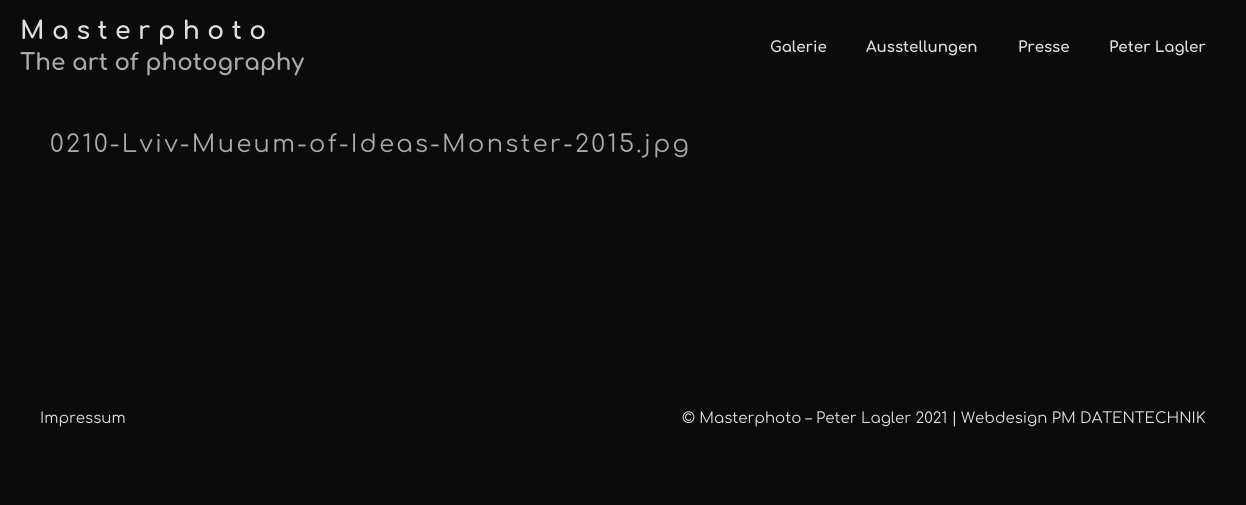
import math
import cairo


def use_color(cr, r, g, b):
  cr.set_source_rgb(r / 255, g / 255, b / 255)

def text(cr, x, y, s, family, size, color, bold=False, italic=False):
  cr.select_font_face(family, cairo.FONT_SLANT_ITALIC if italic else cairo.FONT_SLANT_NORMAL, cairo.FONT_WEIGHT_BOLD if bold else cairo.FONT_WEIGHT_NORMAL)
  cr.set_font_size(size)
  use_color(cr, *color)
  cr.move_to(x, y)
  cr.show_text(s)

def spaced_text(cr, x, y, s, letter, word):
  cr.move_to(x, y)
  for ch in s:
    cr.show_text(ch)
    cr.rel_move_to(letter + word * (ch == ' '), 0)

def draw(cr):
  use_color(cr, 11, 11, 11)
  cr.paint()
  cr.select_font_face("Comfortaa", cairo.FONT_SLANT_NORMAL, cairo.FONT_WEIGHT_BOLD)
  cr.set_font_size(25)
  use_color(cr, 223, 223, 223)
  spaced_text(cr, 20, 39, "Masterphoto", 7.5, 0)
  text(cr, 20, 70, "The art of photography", "Comfortaa", 23, (170, 170, 170), bold=True)
  text(cr, 770, 52, "Galerie", "Comfortaa", 15, (223, 223, 223), bold=True)
  text(cr, 866, 52, "Ausstellungen", "Comfortaa", 15, (223, 223, 223), bold=True)
  text(cr, 1018, 52, "Presse", "Comfortaa", 15, (223, 223, 223), bold=True)
  text(cr, 1109, 52, "Peter Lagler", "Comfortaa", 15, (223, 223, 223), bold=True)
  cr.select_font_face("Comfortaa")
  cr.set_font_size(24)
  use_color(cr, 170, 170, 170)
  spaced_text(cr, 50, 152, "0210-Lviv-Mueum-of-Ideas-Monster-2015.jpg", 2.4, 0)
  text(cr, 40, 423, "Impressum", "Comfortaa", 15, (223, 223, 223))
  text(cr, 682, 423, "© Masterphoto – Peter Lagler 2021 |", "Comfortaa", 15, (223, 223, 223))
  text(cr, 961, 423, "Webdesign PM DATENTECHNIK", "Comfortaa", 15, (223, 223, 223))


surface = cairo.ImageSurface(cairo.FORMAT_RGB24, 1246, 505)
cr = cairo.Context(surface)
options = cairo.FontOptions()
options.set_hint_metrics(cairo.HINT_METRICS_OFF)
options.set_hint_style(cairo.HINT_STYLE_NONE)
cr.set_font_options(options)
cr.set_miter_limit(4)
draw(cr)
surface.write_to_png("out.png")
